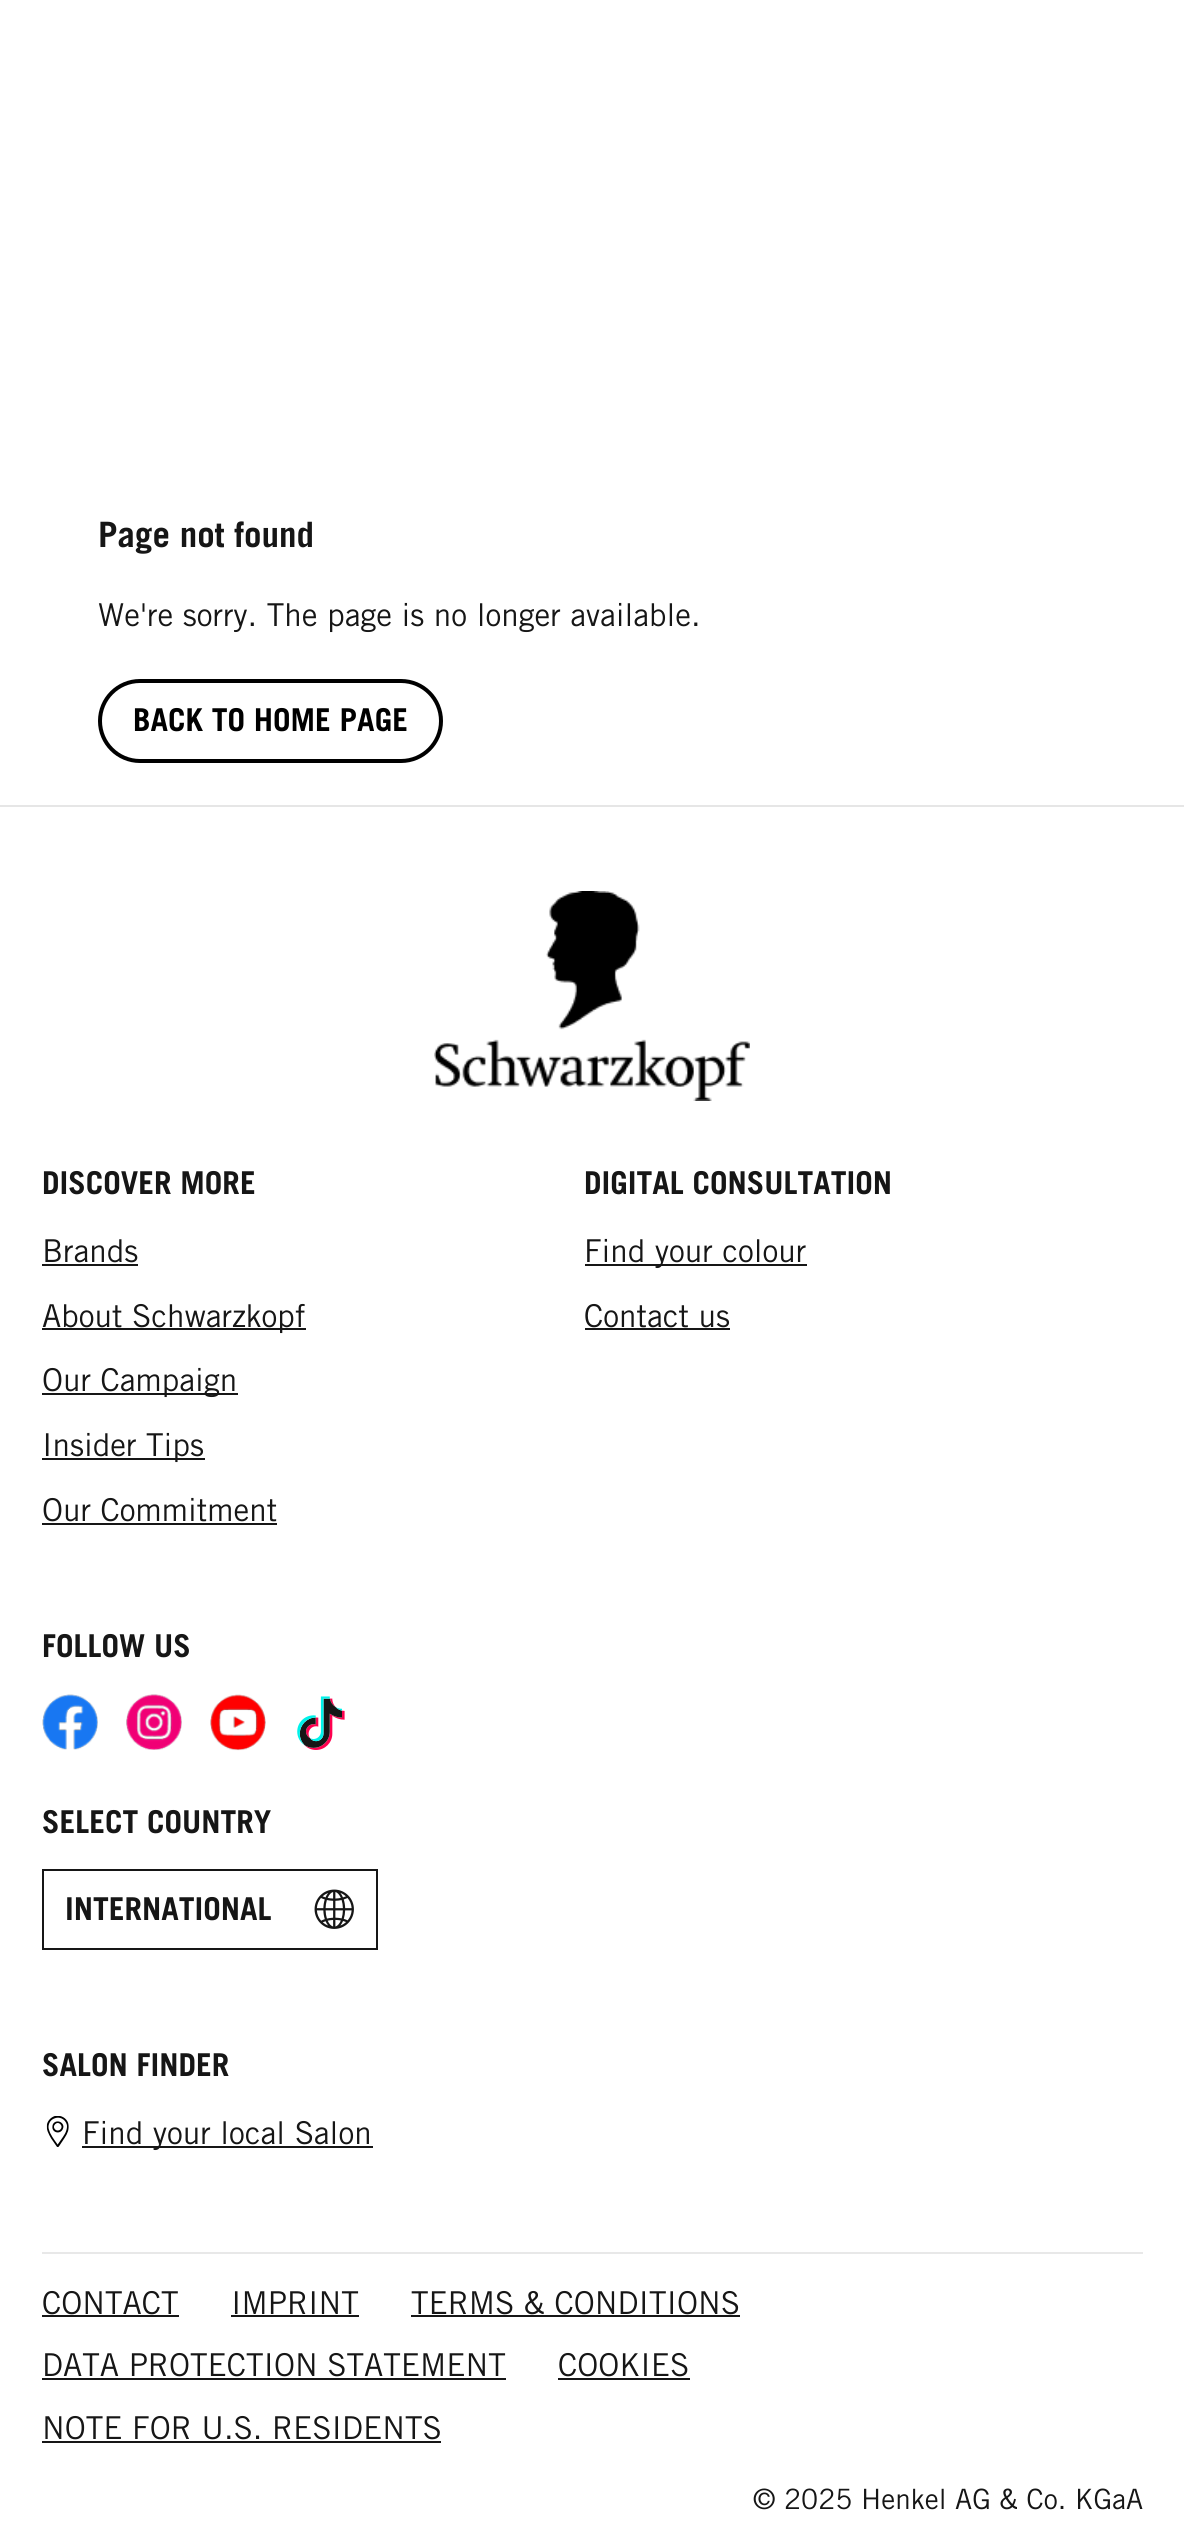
import math
import cairo


def use_color(cr, r, g, b):
  cr.set_source_rgb(r / 255, g / 255, b / 255)

def text(cr, x, y, s, family, size, color, bold=False, italic=False):
  cr.select_font_face(family, cairo.FONT_SLANT_ITALIC if italic else cairo.FONT_SLANT_NORMAL, cairo.FONT_WEIGHT_BOLD if bold else cairo.FONT_WEIGHT_NORMAL)
  cr.set_font_size(size)
  use_color(cr, *color)
  cr.move_to(x, y)
  cr.show_text(s)

def box(cr, x, y, w, h, *color):
  use_color(cr, *color)
  cr.rectangle(x, y, w, h)
  cr.fill()

def round_rect(cr, x, y, w, h, r):
  cr.new_sub_path()
  for i, (u, v) in enumerate([(x + w - r, y + h - r), (x + r, y + h - r), (x + r, y + r), (x + w - r, y + r)]):
    cr.arc(u, v, r, i * math.pi / 2, (i + 1) * math.pi / 2)
  cr.close_path()

def picture(cr, path, x, y, w, h):
  cr.save()
  cr.set_source_surface(cairo.ImageSurface.create_from_png(path), x, y)
  cr.rectangle(x, y, w, h)
  cr.fill()
  cr.restore()

def draw(cr):
  use_color(cr, 255, 255, 255)
  cr.paint()
  round_rect(cr, 100, 681, 341, 80, 40)
  use_color(cr, 0, 0, 0)
  cr.set_line_width(4)
  cr.stroke()
  box(cr, 0, 805, 1184, 2, 230, 230, 230)
  picture(cr, "img_01.png", 434, 891, 316, 210)
  box(cr, 42, 1264, 96, 2, 22, 22, 22)
  box(cr, 42, 1328, 264, 2, 22, 22, 22)
  box(cr, 42, 1393, 196, 2, 22, 22, 22)
  box(cr, 42, 1458, 163, 2, 22, 22, 22)
  box(cr, 42, 1523, 235, 2, 22, 22, 22)
  box(cr, 585, 1264, 222, 2, 22, 22, 22)
  box(cr, 585, 1328, 145, 2, 22, 22, 22)
  picture(cr, "img_02.png", 42, 1694, 56, 56)
  picture(cr, "img_03.png", 126, 1694, 56, 56)
  picture(cr, "img_04.png", 210, 1694, 56, 57)
  picture(cr, "img_05.png", 297, 1696, 48, 54)
  cr.rectangle(43, 1870, 334, 79)
  cr.set_line_width(2)
  cr.stroke()
  picture(cr, "img_06.png", 314, 1889, 40, 40)
  picture(cr, "img_07.png", 46, 2116, 23, 31)
  box(cr, 82, 2146, 291, 2, 22, 22, 22)
  box(cr, 42, 2252, 1101, 2, 232, 232, 232)
  box(cr, 42, 2315, 137, 2, 22, 22, 22)
  box(cr, 231, 2315, 128, 2, 22, 22, 22)
  box(cr, 411, 2315, 329, 2, 22, 22, 22)
  box(cr, 42, 2378, 464, 2, 22, 22, 22)
  box(cr, 558, 2378, 132, 2, 22, 22, 22)
  box(cr, 42, 2441, 399, 2, 22, 22, 22)
  text(cr, 98, 547, "Page not found", "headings", 35, (22, 22, 22), bold=True)
  text(cr, 98, 626, "We're sorry. The page is no longer available.", "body", 31.5, (22, 22, 22))
  text(cr, 133, 731, "BACK TO HOME PAGE", "headings", 31.5, (0, 0, 0), bold=True)
  text(cr, 42, 1194, "DISCOVER MORE", "headings", 31.5, (22, 22, 22), bold=True)
  text(cr, 42, 1262, "Brands", "body", 31.5, (22, 22, 22))
  text(cr, 42, 1327, "About Schwarzkopf", "body", 31.5, (22, 22, 22))
  text(cr, 42, 1391, "Our Campaign", "body", 31.5, (22, 22, 22))
  text(cr, 42, 1456, "Insider Tips", "body", 31.5, (22, 22, 22))
  text(cr, 42, 1521, "Our Commitment", "body", 31.5, (22, 22, 22))
  text(cr, 584, 1194, "DIGITAL CONSULTATION", "headings", 31.5, (22, 22, 22), bold=True)
  text(cr, 584, 1262, "Find your colour", "body", 31.5, (22, 22, 22))
  text(cr, 584, 1327, "Contact us", "body", 31.5, (22, 22, 22))
  text(cr, 42, 1657, "FOLLOW US", "headings", 31.5, (22, 22, 22), bold=True)
  text(cr, 42, 1833, "SELECT COUNTRY", "headings", 31.5, (22, 22, 22), bold=True)
  text(cr, 65, 1920, "INTERNATIONAL", "headings", 31.5, (22, 22, 22), bold=True)
  text(cr, 42, 2076, "SALON FINDER", "headings", 31.5, (22, 22, 22), bold=True)
  text(cr, 82, 2144, "Find your local Salon", "body", 31.5, (22, 22, 22))
  text(cr, 42, 2314, "CONTACT", "body", 31.5, (22, 22, 22))
  text(cr, 231, 2314, "IMPRINT", "body", 31.5, (22, 22, 22))
  text(cr, 411, 2314, "TERMS & CONDITIONS", "body", 31.5, (22, 22, 22))
  text(cr, 42, 2376, "DATA PROTECTION STATEMENT", "body", 31.5, (22, 22, 22))
  text(cr, 558, 2376, "COOKIES", "body", 31.5, (22, 22, 22))
  text(cr, 42, 2439, "NOTE FOR U.S. RESIDENTS", "body", 31.5, (22, 22, 22))
  text(cr, 753, 2509, "© 2025 Henkel AG & Co. KGaA", "body", 28, (22, 22, 22))


surface = cairo.ImageSurface(cairo.FORMAT_RGB24, 1184, 2547)
cr = cairo.Context(surface)
options = cairo.FontOptions()
options.set_hint_metrics(cairo.HINT_METRICS_OFF)
options.set_hint_style(cairo.HINT_STYLE_NONE)
cr.set_font_options(options)
cr.set_miter_limit(4)
draw(cr)
surface.write_to_png("out.png")
